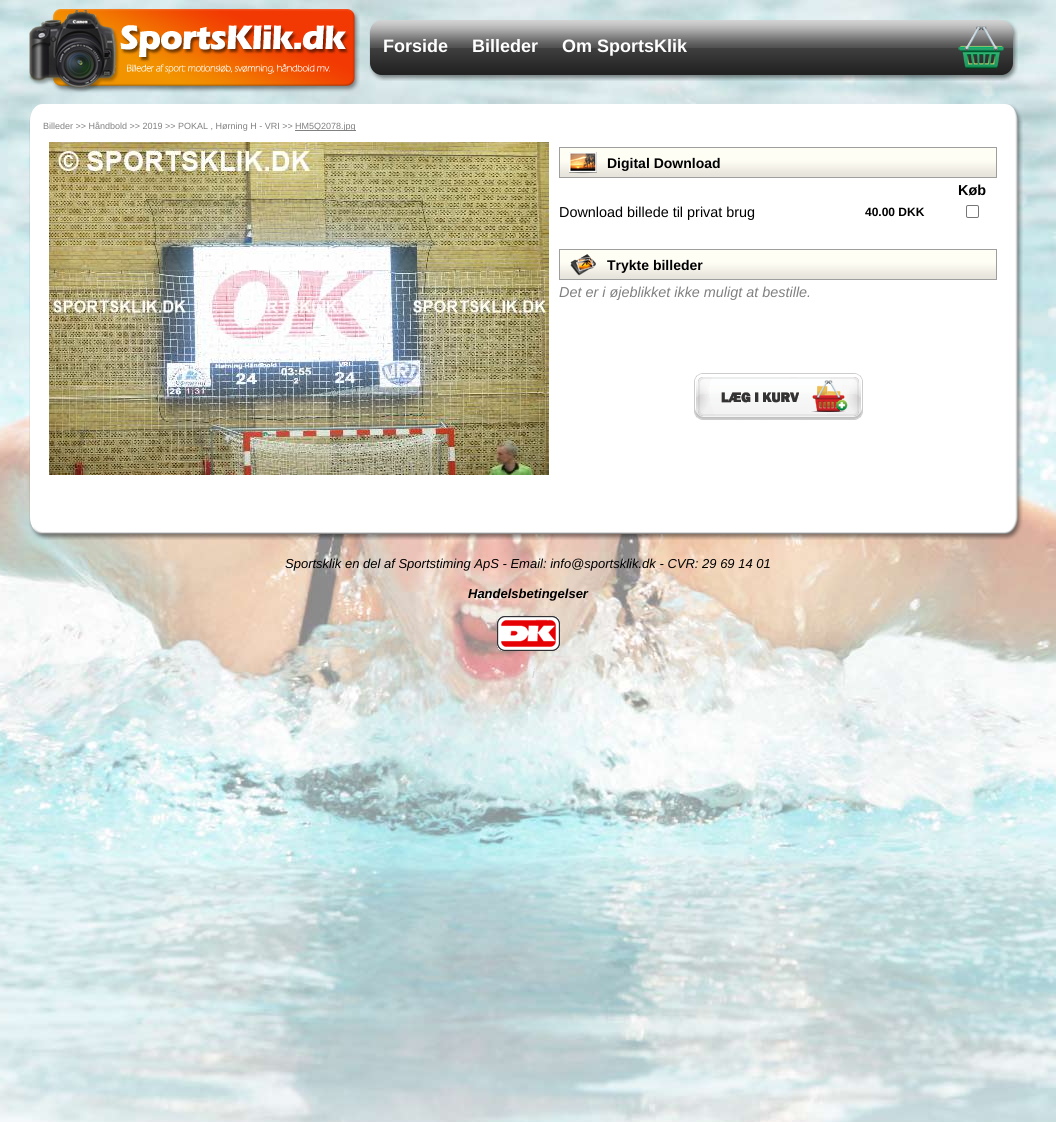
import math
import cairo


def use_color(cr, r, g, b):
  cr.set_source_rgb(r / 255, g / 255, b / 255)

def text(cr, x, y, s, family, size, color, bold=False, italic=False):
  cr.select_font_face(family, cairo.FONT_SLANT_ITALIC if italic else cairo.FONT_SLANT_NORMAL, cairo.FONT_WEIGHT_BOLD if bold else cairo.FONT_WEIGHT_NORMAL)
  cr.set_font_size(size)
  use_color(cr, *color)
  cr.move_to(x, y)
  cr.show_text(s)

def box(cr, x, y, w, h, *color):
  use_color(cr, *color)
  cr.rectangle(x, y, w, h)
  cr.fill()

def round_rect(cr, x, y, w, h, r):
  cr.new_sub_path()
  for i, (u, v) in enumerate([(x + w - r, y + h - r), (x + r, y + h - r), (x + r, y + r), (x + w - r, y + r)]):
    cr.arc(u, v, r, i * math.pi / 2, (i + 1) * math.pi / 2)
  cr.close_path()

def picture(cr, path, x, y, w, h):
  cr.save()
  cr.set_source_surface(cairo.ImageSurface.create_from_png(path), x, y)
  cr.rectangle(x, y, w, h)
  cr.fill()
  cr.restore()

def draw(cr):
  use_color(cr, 255, 255, 255)
  cr.paint()
  picture(cr, "img_01.png", 0, 0, 1056, 1122)
  picture(cr, "img_02.png", 28, 9, 332, 84)
  picture(cr, "img_03.png", 369, 20, 649, 61)
  picture(cr, "img_04.png", 958, 25, 46, 44)
  picture(cr, "img_05.png", 29, 104, 994, 17)
  picture(cr, "img_06.png", 29, 121, 994, 392)
  box(cr, 295, 130, 61, 1, 128, 128, 128)
  picture(cr, "img_07.png", 49, 142, 500, 333)
  picture(cr, "img_08.png", 560, 148, 436, 29)
  cr.rectangle(559.5, 147.5, 437, 30)
  use_color(cr, 158, 158, 158)
  cr.set_line_width(1)
  cr.stroke()
  picture(cr, "img_09.png", 569, 152, 28, 22)
  round_rect(cr, 966.5, 205.5, 12, 12, 1.5)
  use_color(cr, 118, 118, 118)
  cr.stroke()
  picture(cr, "img_08.png", 560, 250, 436, 29)
  cr.rectangle(559.5, 249.5, 437, 30)
  use_color(cr, 158, 158, 158)
  cr.stroke()
  picture(cr, "img_10.png", 570, 254, 26, 22)
  picture(cr, "img_11.png", 694, 373, 169, 47)
  picture(cr, "img_12.png", 29, 513, 994, 27)
  picture(cr, "img_13.png", 497, 616, 63, 35)
  text(cr, 383, 52, "Forside", "Liberation Sans", 18, (255, 255, 255), bold=True)
  text(cr, 472, 52, "Billeder", "Liberation Sans", 18, (255, 255, 255), bold=True)
  text(cr, 562, 52, "Om SportsKlik", "Liberation Sans", 18, (255, 255, 255), bold=True)
  text(cr, 43, 129, "Billeder >> Håndbold >> 2019 >> POKAL , Hørning H - VRI >>", "Liberation Sans", 9, (128, 128, 128))
  text(cr, 295, 129, "HM5Q2078.jpg", "Liberation Sans", 9, (128, 128, 128))
  text(cr, 607, 168, "Digital Download", "Liberation Sans", 14, (0, 0, 0), bold=True)
  text(cr, 958, 195, "Køb", "Liberation Sans", 14.4, (0, 0, 0), bold=True)
  text(cr, 559, 217, "Download billede til privat brug", "Liberation Sans", 14.4, (0, 0, 0))
  text(cr, 865, 216, "40.00 DKK", "Liberation Sans", 12, (0, 0, 0), bold=True)
  text(cr, 607, 270, "Trykte billeder", "Liberation Sans", 14, (0, 0, 0), bold=True)
  text(cr, 559, 297, "Det er i øjeblikket ikke muligt at bestille.", "Liberation Sans", 14.4, (128, 128, 128), italic=True)
  text(cr, 285, 568, "Sportsklik en del af Sportstiming ApS - Email: info@sportsklik.dk - CVR: 29 69 14 01", "Liberation Sans", 13, (0, 0, 0), italic=True)
  text(cr, 468, 598, "Handelsbetingelser", "Liberation Sans", 13, (0, 0, 0), bold=True, italic=True)
  text(cr, 532, 678, "i", "Liberation Sans", 13, (211, 211, 211), italic=True)


surface = cairo.ImageSurface(cairo.FORMAT_RGB24, 1056, 1122)
cr = cairo.Context(surface)
options = cairo.FontOptions()
options.set_hint_metrics(cairo.HINT_METRICS_OFF)
options.set_hint_style(cairo.HINT_STYLE_NONE)
cr.set_font_options(options)
cr.set_miter_limit(4)
draw(cr)
surface.write_to_png("out.png")
